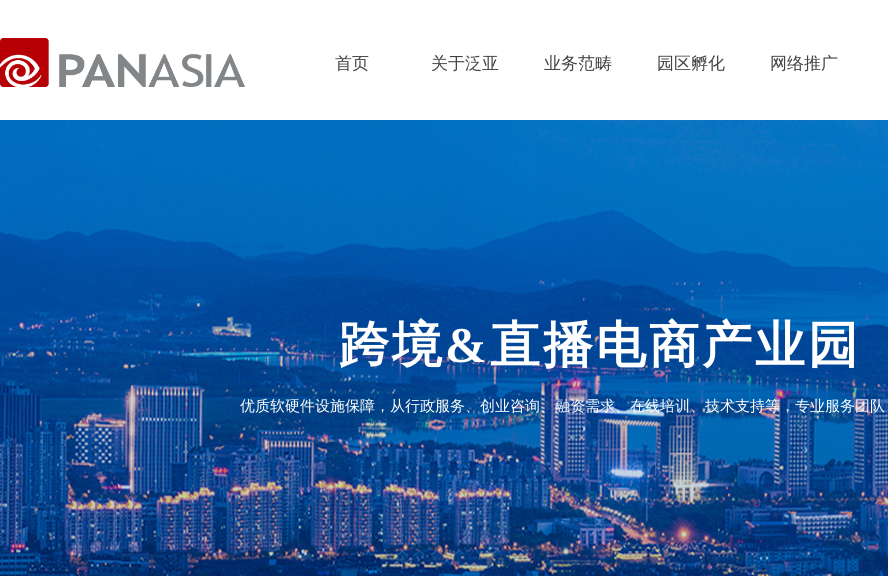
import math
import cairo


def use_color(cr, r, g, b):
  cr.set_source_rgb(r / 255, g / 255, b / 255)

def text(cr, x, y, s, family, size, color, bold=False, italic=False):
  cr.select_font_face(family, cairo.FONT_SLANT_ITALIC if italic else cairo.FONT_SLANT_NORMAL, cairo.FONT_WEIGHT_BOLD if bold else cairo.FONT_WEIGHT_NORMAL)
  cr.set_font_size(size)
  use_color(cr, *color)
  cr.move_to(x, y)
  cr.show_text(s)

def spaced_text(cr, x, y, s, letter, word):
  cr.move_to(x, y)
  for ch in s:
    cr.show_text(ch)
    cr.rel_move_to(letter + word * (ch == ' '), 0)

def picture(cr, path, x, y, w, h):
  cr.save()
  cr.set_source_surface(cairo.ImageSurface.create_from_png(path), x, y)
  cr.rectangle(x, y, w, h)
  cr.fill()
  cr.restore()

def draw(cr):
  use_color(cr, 255, 255, 255)
  cr.paint()
  picture(cr, "img_01.png", 0, 38, 245, 49)
  picture(cr, "img_02.png", 0, 120, 888, 456)
  text(cr, 335, 69, "首页", "WenQuanYi Zen Hei Medium", 17, (67, 67, 67))
  text(cr, 431, 69, "关于泛亚", "WenQuanYi Zen Hei Medium", 17, (67, 67, 67))
  text(cr, 544, 69, "业务范畴", "WenQuanYi Zen Hei Medium", 17, (67, 67, 67))
  text(cr, 657, 69, "园区孵化", "WenQuanYi Zen Hei Medium", 17, (67, 67, 67))
  text(cr, 770, 69, "网络推广", "WenQuanYi Zen Hei Medium", 17, (67, 67, 67))
  cr.select_font_face("WenQuanYi Zen Hei", cairo.FONT_SLANT_NORMAL, cairo.FONT_WEIGHT_BOLD)
  cr.set_font_size(50)
  use_color(cr, 255, 255, 255)
  spaced_text(cr, 339, 362, "跨境", 3, 0)
  cr.select_font_face("Liberation Serif", cairo.FONT_SLANT_NORMAL, cairo.FONT_WEIGHT_BOLD)
  spaced_text(cr, 445, 362, "&", 3, 0)
  cr.select_font_face("WenQuanYi Zen Hei", cairo.FONT_SLANT_NORMAL, cairo.FONT_WEIGHT_BOLD)
  spaced_text(cr, 490, 362, "直播电商产业园", 3, 0)
  text(cr, 240, 411, "优质软硬件设施保障，从行政服务、创业咨询、融资需求、在线培训、技术支持等，专业服务团队", "WenQuanYi Zen Hei Medium", 15, (255, 255, 255))


surface = cairo.ImageSurface(cairo.FORMAT_RGB24, 888, 576)
cr = cairo.Context(surface)
options = cairo.FontOptions()
options.set_hint_metrics(cairo.HINT_METRICS_OFF)
options.set_hint_style(cairo.HINT_STYLE_NONE)
cr.set_font_options(options)
cr.set_miter_limit(4)
draw(cr)
surface.write_to_png("out.png")
